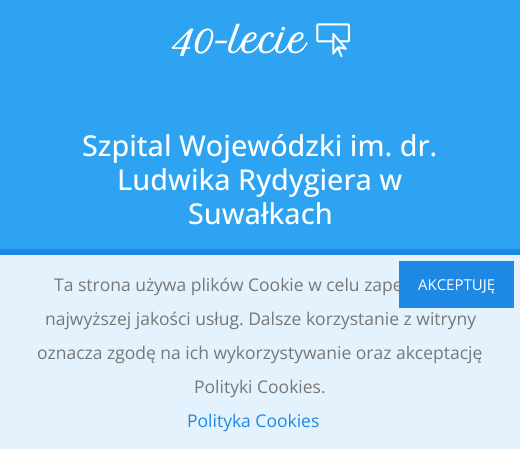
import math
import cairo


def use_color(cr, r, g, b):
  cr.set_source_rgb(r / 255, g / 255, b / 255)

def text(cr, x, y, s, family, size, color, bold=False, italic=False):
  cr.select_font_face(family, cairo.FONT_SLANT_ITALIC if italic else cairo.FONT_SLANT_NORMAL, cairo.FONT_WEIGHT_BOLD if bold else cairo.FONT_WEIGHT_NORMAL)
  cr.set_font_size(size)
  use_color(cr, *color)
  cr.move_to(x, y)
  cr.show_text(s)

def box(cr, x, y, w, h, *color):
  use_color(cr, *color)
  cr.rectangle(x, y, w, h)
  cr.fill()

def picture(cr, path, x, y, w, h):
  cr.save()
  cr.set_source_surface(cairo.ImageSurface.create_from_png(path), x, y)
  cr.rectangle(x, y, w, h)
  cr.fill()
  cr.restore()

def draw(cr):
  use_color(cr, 46, 163, 242)
  cr.paint()
  picture(cr, "img_01.png", 316, 23, 34, 35)
  box(cr, 0, 255, 520, 194, 227, 242, 253)
  box(cr, 0, 249, 520, 6, 30, 136, 229)
  text(cr, 170, 53, "40-lecie", "Petit Formal Script", 33.75, (255, 255, 255), bold=True)
  text(cr, 82, 156, "Szpital Wojewódzki im. dr.", "Open Sans Medium", 28.75, (255, 255, 255))
  text(cr, 117, 190, "Ludwika Rydygiera w", "Open Sans Medium", 28.75, (255, 255, 255))
  text(cr, 188, 224, "Suwałkach", "Open Sans Medium", 28.75, (255, 255, 255))
  text(cr, 54, 291, "Ta strona używa plików Cookie w celu zape", "Open Sans", 17.5, (119, 119, 119))
  box(cr, 399, 261, 115, 47, 30, 136, 229)
  text(cr, 418, 290, "AKCEPTUJĘ", "Open Sans", 15, (255, 255, 255))
  text(cr, 45, 325, "najwyższej jakości usług. Dalsze korzystanie z witryny", "Open Sans", 17.5, (119, 119, 119))
  text(cr, 37, 359, "oznacza zgodę na ich wykorzystywanie oraz akceptację", "Open Sans", 17.5, (119, 119, 119))
  text(cr, 194, 393, "Polityki Cookies.", "Open Sans", 17.5, (119, 119, 119))
  text(cr, 187, 427, "Polityka Cookies", "Open Sans", 17.5, (30, 136, 229))


surface = cairo.ImageSurface(cairo.FORMAT_RGB24, 520, 449)
cr = cairo.Context(surface)
options = cairo.FontOptions()
options.set_hint_metrics(cairo.HINT_METRICS_OFF)
options.set_hint_style(cairo.HINT_STYLE_NONE)
cr.set_font_options(options)
cr.set_miter_limit(4)
draw(cr)
surface.write_to_png("out.png")
